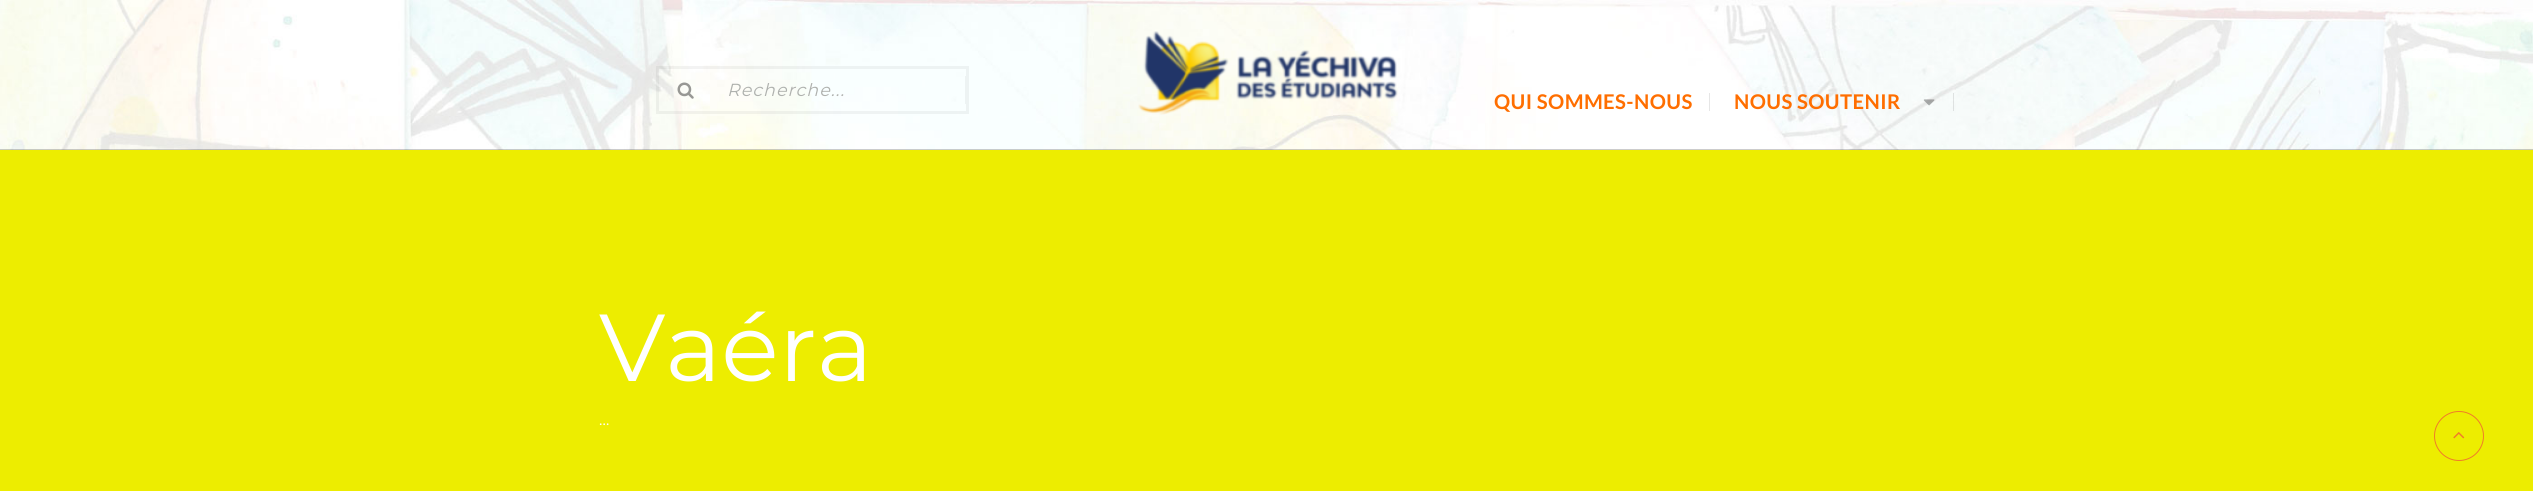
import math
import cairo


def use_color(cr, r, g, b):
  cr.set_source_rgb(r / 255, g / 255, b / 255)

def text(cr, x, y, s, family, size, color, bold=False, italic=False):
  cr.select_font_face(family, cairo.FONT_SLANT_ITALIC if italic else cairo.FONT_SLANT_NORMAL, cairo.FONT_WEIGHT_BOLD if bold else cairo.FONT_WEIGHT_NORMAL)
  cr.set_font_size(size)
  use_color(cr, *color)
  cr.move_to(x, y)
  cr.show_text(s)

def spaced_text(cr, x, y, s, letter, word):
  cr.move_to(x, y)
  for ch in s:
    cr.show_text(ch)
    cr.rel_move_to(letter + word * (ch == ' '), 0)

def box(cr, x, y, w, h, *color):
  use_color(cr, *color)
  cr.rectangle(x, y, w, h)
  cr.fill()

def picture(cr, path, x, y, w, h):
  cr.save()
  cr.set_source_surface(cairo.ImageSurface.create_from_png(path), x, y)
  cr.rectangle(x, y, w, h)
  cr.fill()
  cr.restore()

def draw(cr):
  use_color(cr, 255, 255, 255)
  cr.paint()
  picture(cr, "img_01.png", 0, 0, 2533, 150)
  cr.set_source_rgba(0, 0, 0, 0.2)
  cr.rectangle(0, 149, 2533, 1)
  cr.fill()
  cr.rectangle(657.5, 67.5, 310, 45)
  cr.set_source_rgba(0, 0, 0, 0.05)
  cr.set_line_width(3)
  cr.stroke()
  picture(cr, "img_02.png", 677, 82, 17, 17)
  cr.rectangle(965, 76, 1, 28)
  cr.fill()
  picture(cr, "img_03.png", 1138, 31, 260, 84)
  box(cr, 1709, 93, 1, 18, 230, 230, 230)
  picture(cr, "img_04.png", 1923, 99, 12, 7)
  cr.set_source_rgba(0, 0, 0, 0.1)
  cr.rectangle(1953, 93, 1, 18)
  cr.fill()
  box(cr, 0, 150, 2533, 341, 237, 237, 0)
  cr.arc(2459, 436, 24.5, 0, 2 * math.pi)
  use_color(cr, 240, 124, 41)
  cr.set_line_width(1)
  cr.stroke()
  picture(cr, "img_05.png", 2453, 432, 12, 7)
  cr.select_font_face("Montserrat", cairo.FONT_SLANT_ITALIC)
  cr.set_font_size(17.5)
  use_color(cr, 175, 177, 174)
  spaced_text(cr, 727, 96, "Recherche...", 1, 0)
  cr.select_font_face("Lato", cairo.FONT_SLANT_NORMAL, cairo.FONT_WEIGHT_BOLD)
  cr.set_font_size(20.25)
  use_color(cr, 255, 110, 0)
  spaced_text(cr, 1494, 109, "QUI SOMMES-NOUS", 0.4, 0)
  spaced_text(cr, 1734, 109, "NOUS SOUTENIR", 0.4, 0)
  text(cr, 599, 381, "Vaéra", "Montserrat", 95, (255, 255, 255))
  text(cr, 599, 425, "…", "Montserrat", 16, (255, 255, 255))


surface = cairo.ImageSurface(cairo.FORMAT_RGB24, 2533, 491)
cr = cairo.Context(surface)
options = cairo.FontOptions()
options.set_hint_metrics(cairo.HINT_METRICS_OFF)
options.set_hint_style(cairo.HINT_STYLE_NONE)
cr.set_font_options(options)
cr.set_miter_limit(4)
draw(cr)
surface.write_to_png("out.png")
